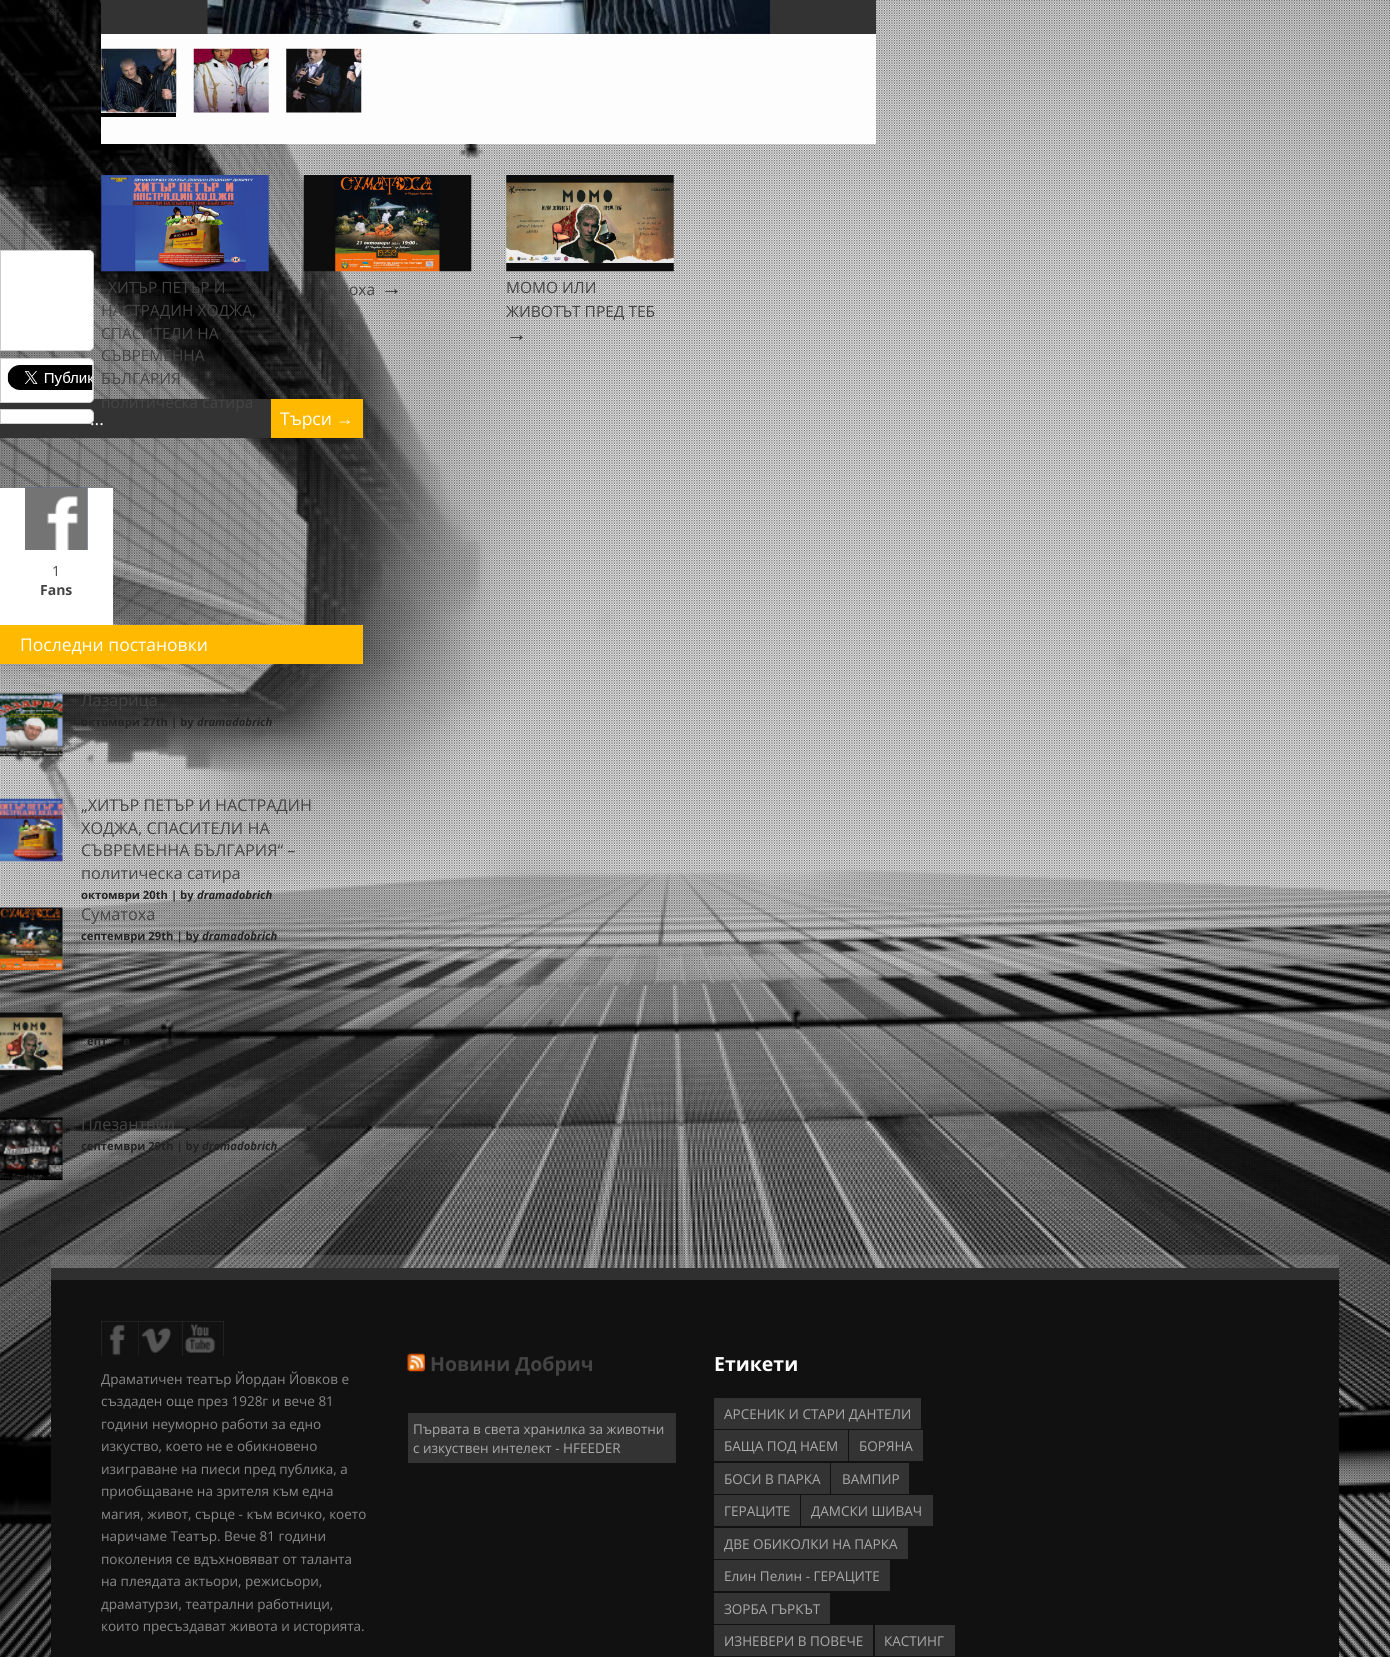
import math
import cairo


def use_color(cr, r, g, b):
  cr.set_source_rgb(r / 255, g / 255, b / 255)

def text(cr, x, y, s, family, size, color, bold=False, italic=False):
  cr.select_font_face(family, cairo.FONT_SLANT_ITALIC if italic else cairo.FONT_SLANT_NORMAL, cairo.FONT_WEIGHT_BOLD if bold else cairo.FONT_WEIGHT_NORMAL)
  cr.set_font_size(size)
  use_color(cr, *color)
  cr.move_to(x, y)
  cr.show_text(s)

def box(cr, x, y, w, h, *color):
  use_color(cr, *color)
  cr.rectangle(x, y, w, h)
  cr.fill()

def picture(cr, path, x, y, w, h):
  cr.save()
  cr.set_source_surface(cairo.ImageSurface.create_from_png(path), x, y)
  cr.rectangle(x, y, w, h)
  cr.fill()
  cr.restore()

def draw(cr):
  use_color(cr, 255, 255, 255)
  cr.paint()
  picture(cr, "img_01.png", 0, 0, 1390, 1657)
  picture(cr, "img_02.png", 0, 0, 1390, 1657)
  box(cr, 101, 34, 775, 110, 253, 253, 253)
  box(cr, 101, 0, 775, 34, 51, 51, 51)
  picture(cr, "img_03.png", 207, 0, 563, 34)
  box(cr, 101, 113, 75, 4, 0, 0, 0)
  picture(cr, "img_04.png", 101, 48, 76, 65)
  picture(cr, "img_05.png", 193, 48, 76, 65)
  picture(cr, "img_06.png", 286, 48, 76, 65)
  use_color(cr, 255, 255, 255)
  cr.new_path()
  cr.move_to(0.5, 250.5)
  cr.line_to(89, 250.5)
  cr.curve_to(91.5, 250.5, 93.5, 252.5, 93.5, 255)
  cr.line_to(93.5, 346)
  cr.curve_to(93.5, 348.5, 91.5, 350.5, 89, 350.5)
  cr.line_to(0.5, 350.5)
  cr.close_path()
  cr.fill_preserve()
  use_color(cr, 204, 204, 204)
  cr.set_line_width(1)
  cr.stroke()
  box(cr, 0, 399, 271, 39, 51, 51, 51)
  use_color(cr, 255, 255, 255)
  cr.new_path()
  cr.move_to(0.5, 358.5)
  cr.line_to(89, 358.5)
  cr.curve_to(91.5, 358.5, 93.5, 360.5, 93.5, 363)
  cr.line_to(93.5, 398)
  cr.curve_to(93.5, 400.5, 91.5, 402.5, 89, 402.5)
  cr.line_to(0.5, 402.5)
  cr.close_path()
  cr.fill_preserve()
  use_color(cr, 204, 204, 204)
  cr.stroke()
  picture(cr, "img_07.png", 7, 365, 86, 25)
  use_color(cr, 255, 255, 255)
  cr.new_path()
  cr.move_to(0.5, 409.5)
  cr.line_to(89, 409.5)
  cr.curve_to(91.5, 409.5, 93.5, 411.5, 93.5, 414)
  cr.line_to(93.5, 419)
  cr.curve_to(93.5, 421.5, 91.5, 423.5, 89, 423.5)
  cr.line_to(0.5, 423.5)
  cr.close_path()
  cr.fill_preserve()
  use_color(cr, 204, 204, 204)
  cr.stroke()
  picture(cr, "img_08.png", 101, 175, 168, 97)
  picture(cr, "img_09.png", 303, 175, 169, 97)
  picture(cr, "img_10.png", 506, 175, 168, 97)
  box(cr, 271, 399, 92, 39, 255, 186, 0)
  box(cr, 0, 488, 113, 137, 255, 255, 255)
  picture(cr, "img_11.png", 25, 487, 63, 63)
  picture(cr, "img_12.png", 25, 487, 63, 63)
  box(cr, 0, 625, 363, 39, 255, 186, 0)
  picture(cr, "img_13.png", 0, 693, 63, 64)
  picture(cr, "img_14.png", 0, 798, 63, 64)
  picture(cr, "img_15.png", 0, 907, 63, 63)
  picture(cr, "img_16.png", 0, 1012, 63, 63)
  picture(cr, "img_17.png", 0, 1117, 63, 63)
  box(cr, 51, 1268, 1288, 389, 17, 17, 17)
  cr.set_source_rgba(0.667, 0.667, 0.667, 0.2)
  cr.rectangle(51, 1255, 1288, 25)
  cr.fill()
  box(cr, 101, 1321, 123, 35, 85, 85, 85)
  picture(cr, "img_18.png", 101, 1321, 38, 35)
  picture(cr, "img_19.png", 138, 1321, 45, 35)
  picture(cr, "img_20.png", 182, 1321, 42, 35)
  picture(cr, "img_21.png", 407, 1353, 18, 19)
  box(cr, 408, 1413, 268, 50, 51, 51, 51)
  box(cr, 714, 1398, 207, 31, 51, 51, 51)
  box(cr, 714, 1430, 134, 31, 51, 51, 51)
  box(cr, 849, 1430, 74, 31, 51, 51, 51)
  box(cr, 714, 1463, 116, 31, 51, 51, 51)
  box(cr, 831, 1463, 78, 31, 51, 51, 51)
  box(cr, 714, 1495, 86, 31, 51, 51, 51)
  box(cr, 801, 1495, 132, 31, 51, 51, 51)
  box(cr, 714, 1528, 194, 31, 51, 51, 51)
  box(cr, 714, 1560, 176, 31, 51, 51, 51)
  box(cr, 714, 1593, 116, 31, 51, 51, 51)
  box(cr, 714, 1625, 159, 31, 51, 51, 51)
  box(cr, 875, 1625, 80, 31, 51, 51, 51)
  text(cr, 108, 293, "ХИТЪР ПЕТЪР И", "Open Sans", 15.5, (68, 68, 68))
  text(cr, 101, 316, "НАСТРАДИН ХОДЖА,", "Open Sans", 15.5, (68, 68, 68))
  text(cr, 101, 339, "СПАСИТЕЛИ НА", "Open Sans", 15.5, (68, 68, 68))
  text(cr, 101, 361, "СЪВРЕМЕННА", "Open Sans", 15.5, (68, 68, 68))
  text(cr, 101, 384, "БЪЛГАРИЯ“ –", "Open Sans", 15.5, (68, 68, 68))
  text(cr, 101, 408, "политическа сатира", "Open Sans", 15.5, (68, 68, 68))
  text(cr, 349, 295, "оха", "Open Sans", 15.5, (68, 68, 68))
  text(cr, 381, 295, "→", "Liberation Sans", 21, (51, 51, 51))
  text(cr, 506, 293, "МОМО ИЛИ", "Open Sans", 15.5, (68, 68, 68))
  text(cr, 506, 317, "ЖИВОТЪТ ПРЕД ТЕБ", "Open Sans", 15.5, (68, 68, 68))
  text(cr, 506, 341, "→", "Liberation Sans", 21, (51, 51, 51))
  text(cr, 90, 425, "...", "Open Sans", 17.5, (255, 255, 255))
  text(cr, 280, 425, "Търси", "Open Sans", 17.5, (255, 255, 255))
  text(cr, 336, 425, "→", "Liberation Sans", 17.5, (255, 255, 255))
  text(cr, 52, 576, "1", "Open Sans", 14, (68, 68, 68))
  text(cr, 40, 595, "Fans", "Open Sans", 14, (68, 68, 68), bold=True)
  text(cr, 20, 651, "Последни постановки", "Open Sans", 17.5, (255, 255, 255))
  text(cr, 81, 706, "Лазарица", "Open Sans", 16.25, (68, 68, 68))
  text(cr, 81, 726, "октомври 27th | by", "Open Sans", 11.25, (34, 34, 34), bold=True)
  text(cr, 197, 726, "dramadobrich", "Open Sans", 11.25, (34, 34, 34), bold=True, italic=True)
  text(cr, 81, 811, "„ХИТЪР ПЕТЪР И НАСТРАДИН", "Open Sans", 16.25, (68, 68, 68))
  text(cr, 81, 834, "ХОДЖА, СПАСИТЕЛИ НА", "Open Sans", 16.25, (68, 68, 68))
  text(cr, 81, 856, "СЪВРЕМЕННА БЪЛГАРИЯ“ –", "Open Sans", 16.25, (68, 68, 68))
  text(cr, 81, 879, "политическа сатира", "Open Sans", 16.25, (68, 68, 68))
  text(cr, 81, 899, "октомври 20th | by", "Open Sans", 11.25, (34, 34, 34), bold=True)
  text(cr, 197, 899, "dramadobrich", "Open Sans", 11.25, (34, 34, 34), bold=True, italic=True)
  text(cr, 81, 920, "Суматоха", "Open Sans", 16.25, (68, 68, 68))
  text(cr, 81, 940, "септември 29th | by", "Open Sans", 11.25, (34, 34, 34), bold=True)
  text(cr, 202, 940, "dramadobrich", "Open Sans", 11.25, (34, 34, 34), bold=True, italic=True)
  text(cr, 87, 1045, "епт", "Open Sans", 11.25, (34, 34, 34), bold=True)
  text(cr, 123, 1045, "в", "Open Sans", 11.25, (34, 34, 34), bold=True)
  text(cr, 81, 1130, "Плезантвил", "Open Sans", 16.25, (68, 68, 68))
  text(cr, 81, 1150, "септември 29th | by", "Open Sans", 11.25, (34, 34, 34), bold=True)
  text(cr, 202, 1150, "dramadobrich", "Open Sans", 11.25, (34, 34, 34), bold=True, italic=True)
  text(cr, 101, 1384, "Драматичен театър Йордан Йовков е", "Open Sans", 13.5, (136, 136, 136))
  text(cr, 101, 1406, "създаден още през 1928г и вече 81", "Open Sans", 13.5, (136, 136, 136))
  text(cr, 101, 1429, "години неуморно работи за едно", "Open Sans", 13.5, (136, 136, 136))
  text(cr, 101, 1451, "изкуство, което не е обикновено", "Open Sans", 13.5, (136, 136, 136))
  text(cr, 101, 1474, "изиграване на пиеси пред публика, а", "Open Sans", 13.5, (136, 136, 136))
  text(cr, 101, 1496, "приобщаване на зрителя към една", "Open Sans", 13.5, (136, 136, 136))
  text(cr, 101, 1519, "магия, живот, сърце - към всичко, което", "Open Sans", 13.5, (136, 136, 136))
  text(cr, 101, 1541, "наричаме Театър. Вече 81 години", "Open Sans", 13.5, (136, 136, 136))
  text(cr, 101, 1564, "поколения се вдъхновяват от таланта", "Open Sans", 13.5, (136, 136, 136))
  text(cr, 101, 1586, "на плеядата актьори, режисьори,", "Open Sans", 13.5, (136, 136, 136))
  text(cr, 101, 1609, "драматурзи, театрални работници,", "Open Sans", 13.5, (136, 136, 136))
  text(cr, 101, 1631, "които пресъздават живота и историята.", "Open Sans", 13.5, (136, 136, 136))
  text(cr, 430, 1371, "Новини Добрич", "Open Sans", 19.5, (68, 68, 68), bold=True)
  text(cr, 413, 1434, "Първата в света хранилка за животни", "Open Sans", 13.5, (170, 170, 170))
  text(cr, 413, 1453, "с изкуствен интелект - HFEEDER", "Open Sans", 13.5, (170, 170, 170))
  text(cr, 714, 1371, "Етикети", "Open Sans", 19.5, (255, 255, 255), bold=True)
  text(cr, 724, 1419, "АРСЕНИК И СТАРИ ДАНТЕЛИ", "Open Sans", 13.5, (170, 170, 170))
  text(cr, 724, 1451, "БАЩА ПОД НАЕМ", "Open Sans", 13.5, (170, 170, 170))
  text(cr, 859, 1451, "БОРЯНА", "Open Sans", 13.5, (170, 170, 170))
  text(cr, 724, 1484, "БОСИ В ПАРКА", "Open Sans", 13.5, (170, 170, 170))
  text(cr, 842, 1484, "ВАМПИР", "Open Sans", 13.5, (170, 170, 170))
  text(cr, 724, 1516, "ГEРAЦИТE", "Open Sans", 13.5, (170, 170, 170))
  text(cr, 811, 1516, "ДАМСКИ ШИВАЧ", "Open Sans", 13.5, (170, 170, 170))
  text(cr, 724, 1549, "ДВЕ ОБИКОЛКИ НА ПАРКА", "Open Sans", 13.5, (170, 170, 170))
  text(cr, 724, 1581, "Елин Пелин - ГЕРАЦИТЕ", "Open Sans", 13.5, (170, 170, 170))
  text(cr, 724, 1614, "ЗОРБА ГЪРКЪТ", "Open Sans", 13.5, (170, 170, 170))
  text(cr, 724, 1646, "ИЗНЕВЕРИ В ПОВЕЧЕ", "Open Sans", 13.5, (170, 170, 170))
  text(cr, 884, 1646, "КАСТИНГ", "Open Sans", 13.5, (170, 170, 170))


surface = cairo.ImageSurface(cairo.FORMAT_RGB24, 1390, 1657)
cr = cairo.Context(surface)
options = cairo.FontOptions()
options.set_hint_metrics(cairo.HINT_METRICS_OFF)
options.set_hint_style(cairo.HINT_STYLE_NONE)
cr.set_font_options(options)
cr.set_miter_limit(4)
draw(cr)
surface.write_to_png("out.png")
